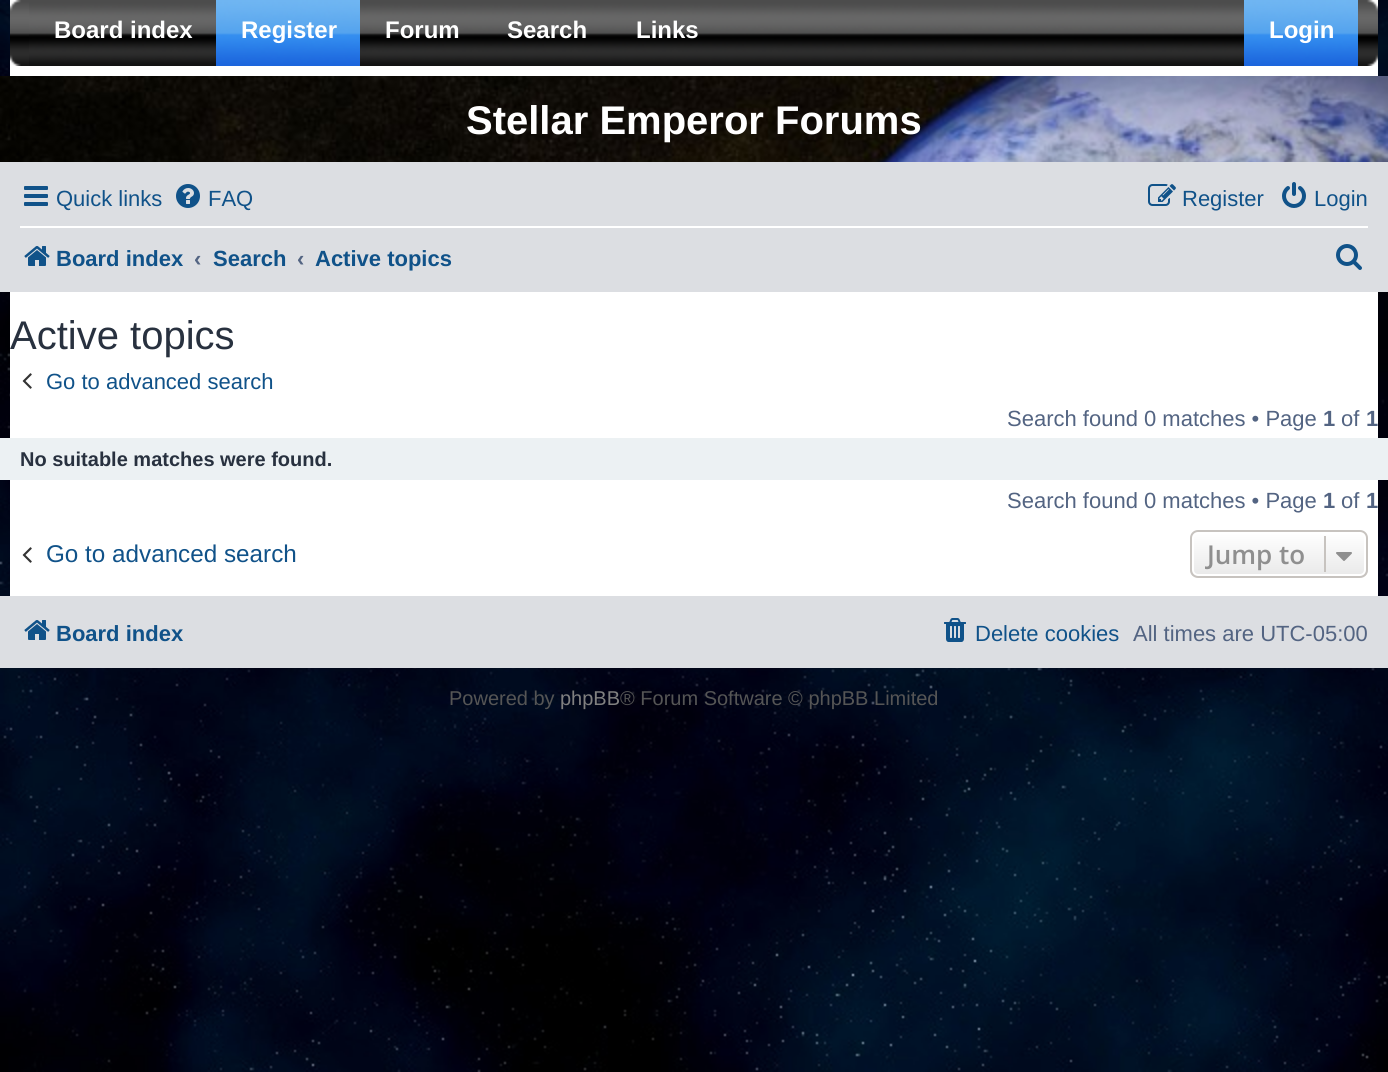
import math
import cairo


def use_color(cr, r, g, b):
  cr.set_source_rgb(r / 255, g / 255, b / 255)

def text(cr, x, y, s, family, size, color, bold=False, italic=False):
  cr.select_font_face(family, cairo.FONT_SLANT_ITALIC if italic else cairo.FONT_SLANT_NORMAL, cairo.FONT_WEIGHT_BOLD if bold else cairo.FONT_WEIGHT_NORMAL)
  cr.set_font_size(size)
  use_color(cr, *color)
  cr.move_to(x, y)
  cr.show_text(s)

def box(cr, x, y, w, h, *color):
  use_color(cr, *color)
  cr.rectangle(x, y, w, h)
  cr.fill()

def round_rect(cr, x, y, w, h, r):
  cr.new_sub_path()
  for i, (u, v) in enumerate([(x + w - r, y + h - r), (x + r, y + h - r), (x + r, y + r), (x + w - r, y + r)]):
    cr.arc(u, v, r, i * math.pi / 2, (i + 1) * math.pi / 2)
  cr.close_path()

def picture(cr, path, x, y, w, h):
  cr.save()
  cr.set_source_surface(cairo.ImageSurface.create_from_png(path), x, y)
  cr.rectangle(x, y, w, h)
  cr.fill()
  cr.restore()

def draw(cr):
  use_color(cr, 255, 255, 255)
  cr.paint()
  picture(cr, "img_01.png", 0, 730, 1388, 342)
  picture(cr, "img_02.png", 0, 0, 1388, 730)
  box(cr, 10, 66, 1368, 530, 255, 255, 255)
  picture(cr, "img_03.png", 29, 0, 1215, 66)
  picture(cr, "img_04.png", 10, 0, 19, 66)
  picture(cr, "img_05.png", 216, 0, 144, 66)
  picture(cr, "img_06.png", 1244, 0, 114, 66)
  picture(cr, "img_07.png", 1358, 0, 20, 66)
  picture(cr, "img_08.png", 0, 76, 1388, 86)
  box(cr, 0, 162, 1388, 130, 220, 222, 226)
  picture(cr, "img_09.png", 24, 186, 24, 20)
  picture(cr, "img_10.png", 176, 184, 24, 24)
  picture(cr, "img_11.png", 1148, 184, 28, 22)
  picture(cr, "img_12.png", 1282, 182, 24, 26)
  box(cr, 20, 226, 1348, 2, 255, 255, 255)
  picture(cr, "img_13.png", 24, 246, 26, 20)
  picture(cr, "img_14.png", 1336, 244, 26, 26)
  picture(cr, "img_15.png", 22, 373, 10, 16)
  box(cr, 0, 438, 1388, 42, 236, 241, 243)
  picture(cr, "img_15.png", 22, 547, 10, 16)
  cr.save()
  round_rect(cr, 1190, 530, 178, 48, 8)
  cr.clip()
  gradient = cairo.LinearGradient(1279, 532, 1279, 576)
  gradient.add_color_stop_rgba(0, 1, 1, 1, 1)
  gradient.add_color_stop_rgba(1, 0.914, 0.914, 0.914, 1)
  cr.set_source(gradient)
  cr.rectangle(1190, 532, 178, 44)
  cr.fill()
  cr.restore()
  round_rect(cr, 1193, 533, 172, 42, 5)
  use_color(cr, 255, 255, 255)
  cr.stroke()
  round_rect(cr, 1191, 531, 176, 46, 7)
  use_color(cr, 199, 195, 191)
  cr.stroke()
  box(cr, 1324, 536, 2, 36, 199, 195, 191)
  picture(cr, "img_16.png", 1336, 552, 16, 9)
  box(cr, 0, 596, 1388, 72, 220, 222, 226)
  picture(cr, "img_13.png", 24, 620, 26, 20)
  picture(cr, "img_17.png", 944, 618, 22, 24)
  text(cr, 54, 38, "Board index", "Liberation Sans", 24, (255, 255, 255), bold=True)
  text(cr, 241, 38, "Register", "Liberation Sans", 24, (255, 255, 255), bold=True)
  text(cr, 385, 38, "Forum", "Liberation Sans", 24, (255, 255, 255), bold=True)
  text(cr, 507, 38, "Search", "Liberation Sans", 24, (255, 255, 255), bold=True)
  text(cr, 636, 38, "Links", "Liberation Sans", 24, (255, 255, 255), bold=True)
  text(cr, 1269, 38, "Login", "Liberation Sans", 24, (255, 255, 255), bold=True)
  text(cr, 466, 134, "Stellar Emperor Forums", "Liberation Sans", 40, (255, 255, 255), bold=True)
  text(cr, 56, 206, "Quick links", "Liberation Sans", 22, (16, 82, 137))
  text(cr, 208, 206, "FAQ", "Liberation Sans", 22, (16, 82, 137))
  text(cr, 1182, 206, "Register", "Liberation Sans", 22, (16, 82, 137))
  text(cr, 1314, 206, "Login", "Liberation Sans", 22, (16, 82, 137))
  text(cr, 56, 266, "Board index", "Liberation Sans", 22, (16, 82, 137), bold=True)
  text(cr, 194, 266, "‹", "Liberation Sans", 22, (83, 100, 130), bold=True)
  text(cr, 213, 266, "Search", "Liberation Sans", 22, (16, 82, 137), bold=True)
  text(cr, 297, 266, "‹", "Liberation Sans", 22, (83, 100, 130), bold=True)
  text(cr, 315, 266, "Active topics", "Liberation Sans", 22, (16, 82, 137), bold=True)
  text(cr, 10, 349, "Active topics", "Liberation Sans", 40, (40, 49, 63))
  text(cr, 46, 389, "Go to advanced search", "Liberation Sans", 22, (16, 82, 137))
  text(cr, 1007, 426, "Search found 0 matches • Page", "Liberation Sans", 22, (83, 100, 130))
  text(cr, 1323, 426, "1", "Liberation Sans", 22, (83, 100, 130), bold=True)
  text(cr, 1341, 426, "of", "Liberation Sans", 22, (83, 100, 130))
  text(cr, 1366, 426, "1", "Liberation Sans", 22, (83, 100, 130), bold=True)
  text(cr, 20, 466, "No suitable matches were found.", "Liberation Sans", 20, (40, 49, 63), bold=True)
  text(cr, 1007, 508, "Search found 0 matches • Page", "Liberation Sans", 22, (83, 100, 130))
  text(cr, 1323, 508, "1", "Liberation Sans", 22, (83, 100, 130), bold=True)
  text(cr, 1341, 508, "of", "Liberation Sans", 22, (83, 100, 130))
  text(cr, 1366, 508, "1", "Liberation Sans", 22, (83, 100, 130), bold=True)
  text(cr, 46, 562, "Go to advanced search", "Liberation Sans", 24.25, (16, 82, 137))
  text(cr, 1207, 564, "Jump to", "Open Sans SemiBold", 26, (143, 143, 143))
  text(cr, 56, 641, "Board index", "Liberation Sans", 22, (16, 82, 137), bold=True)
  text(cr, 975, 641, "Delete cookies", "Liberation Sans", 22, (16, 82, 137))
  text(cr, 1133, 641, "All times are UTC-05:00", "Liberation Sans", 22, (83, 100, 130))
  text(cr, 449, 705, "Powered by", "Liberation Sans", 20, (85, 85, 85))
  text(cr, 560, 705, "phpBB", "Liberation Sans", 20, (128, 128, 128))
  text(cr, 620, 705, "® Forum Software © phpBB Limited", "Liberation Sans", 20, (85, 85, 85))


surface = cairo.ImageSurface(cairo.FORMAT_RGB24, 1388, 1072)
cr = cairo.Context(surface)
options = cairo.FontOptions()
options.set_hint_metrics(cairo.HINT_METRICS_OFF)
options.set_hint_style(cairo.HINT_STYLE_NONE)
cr.set_font_options(options)
cr.set_miter_limit(4)
draw(cr)
surface.write_to_png("out.png")
